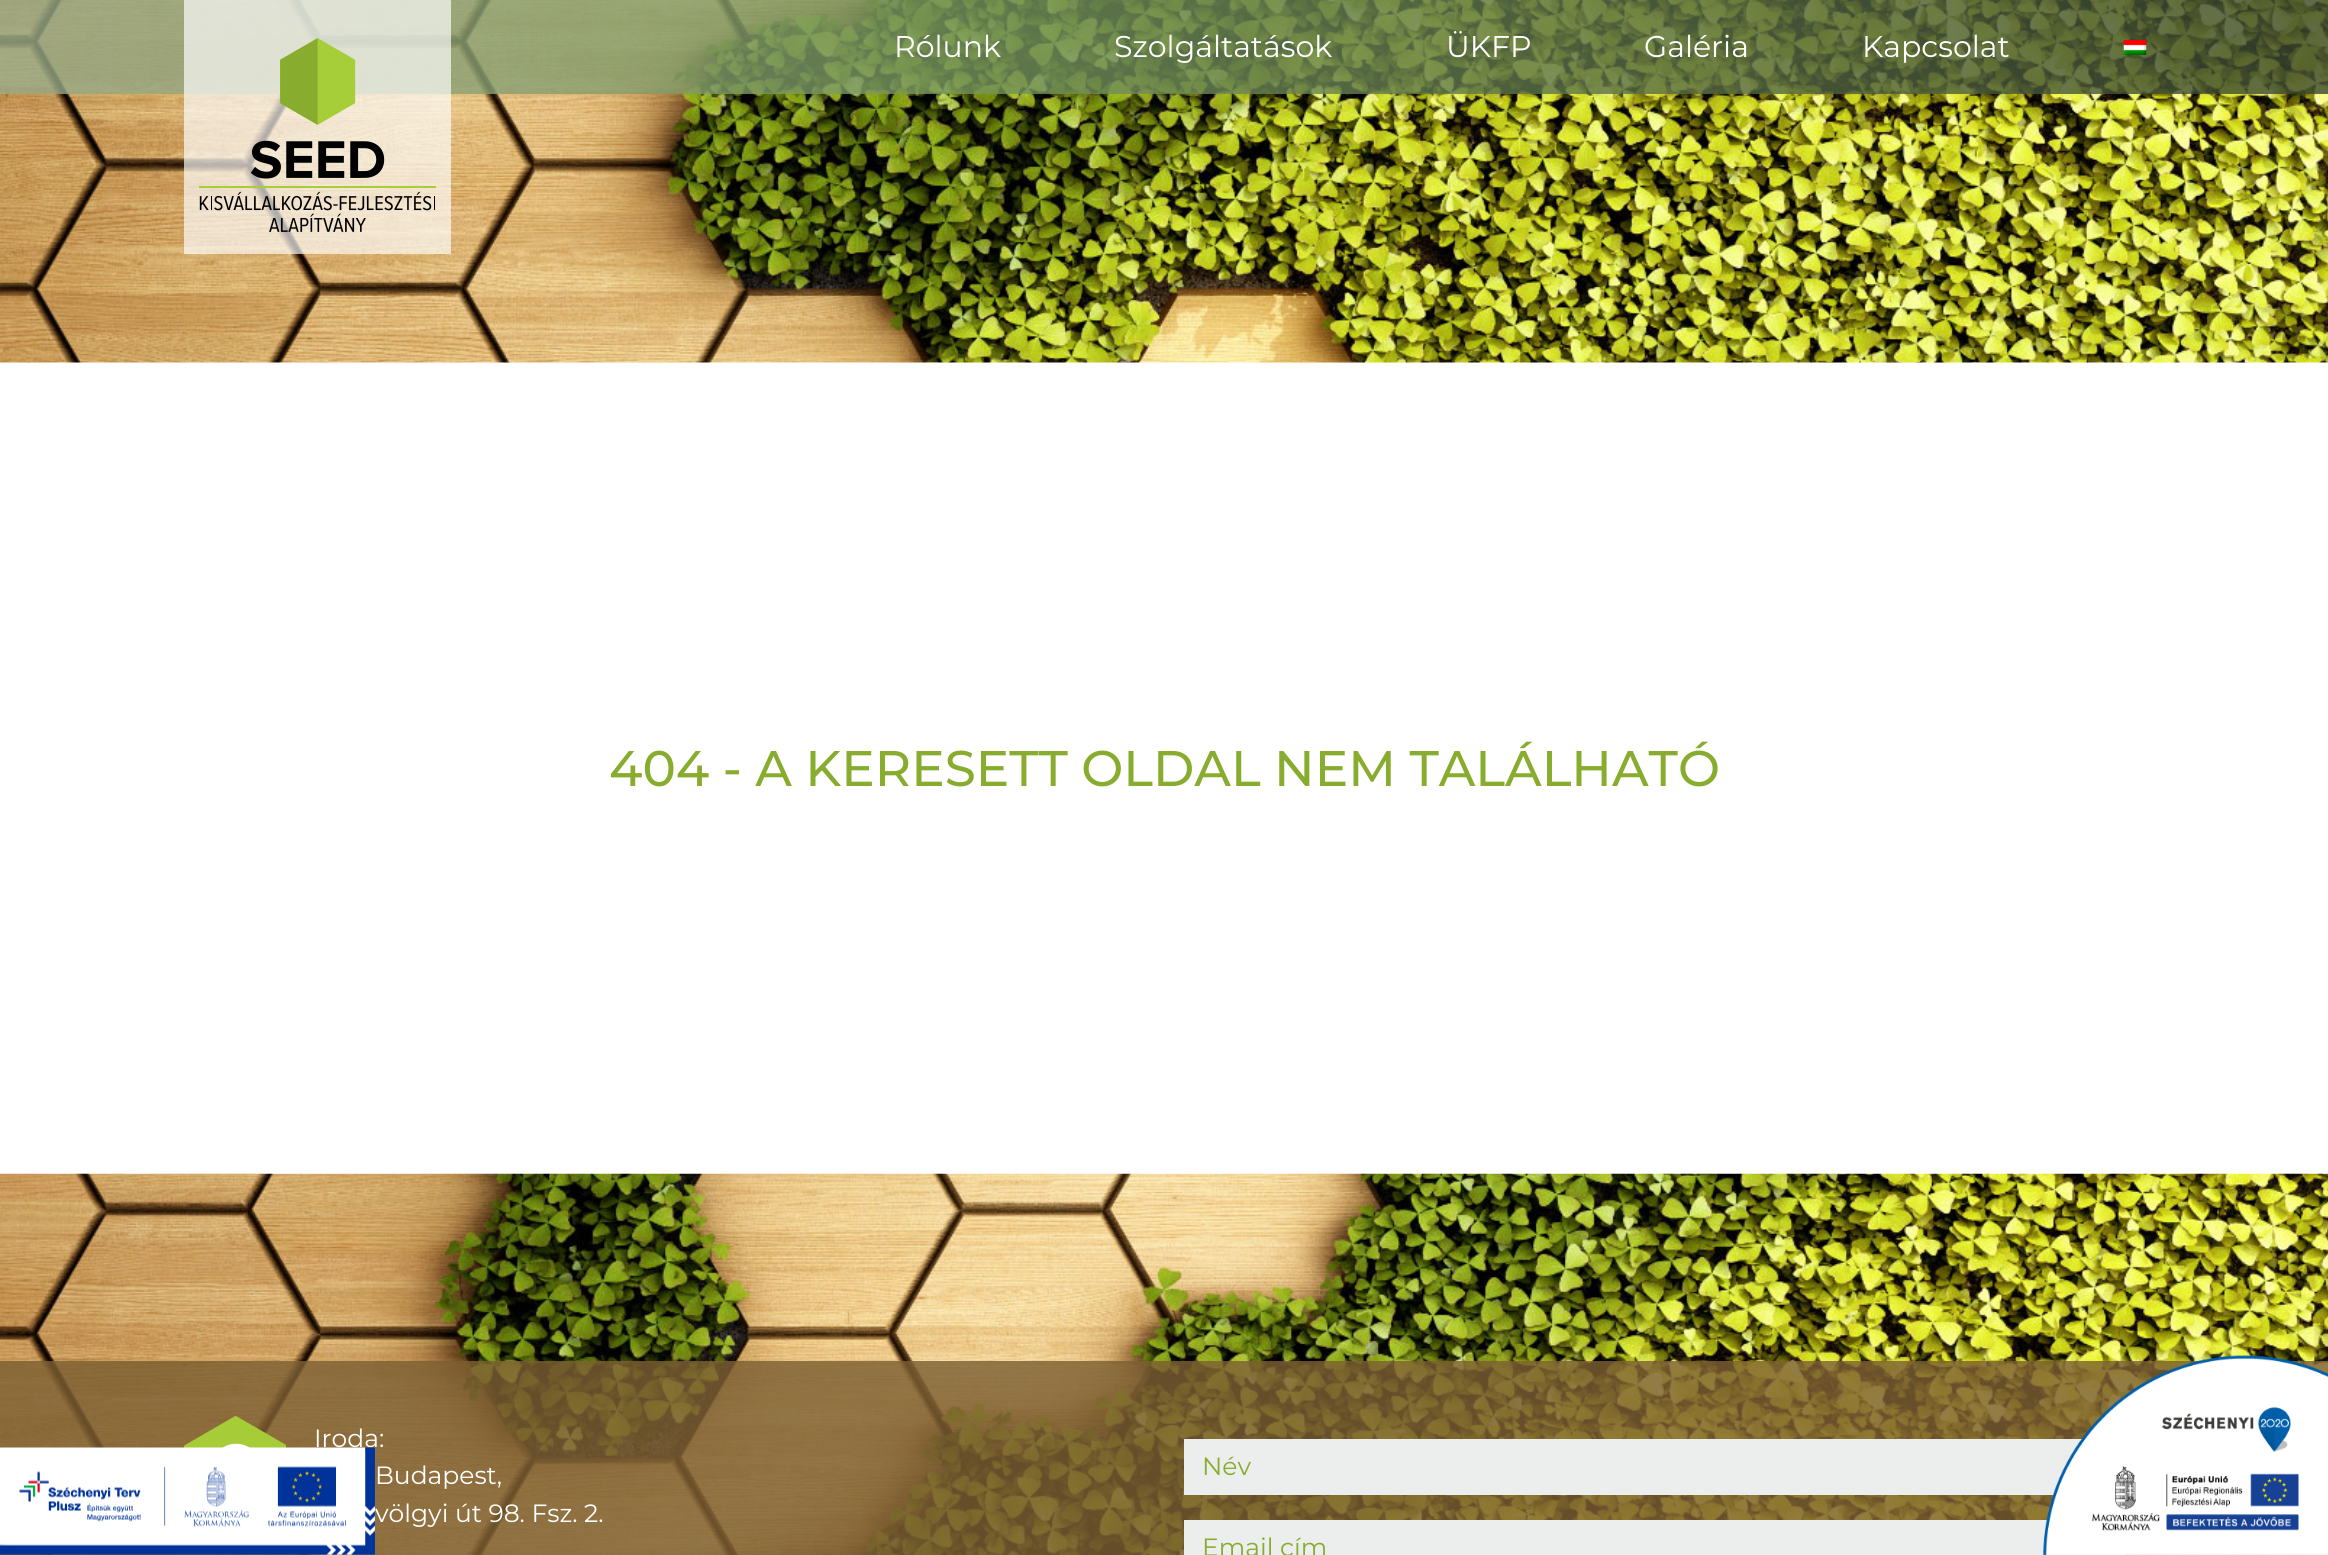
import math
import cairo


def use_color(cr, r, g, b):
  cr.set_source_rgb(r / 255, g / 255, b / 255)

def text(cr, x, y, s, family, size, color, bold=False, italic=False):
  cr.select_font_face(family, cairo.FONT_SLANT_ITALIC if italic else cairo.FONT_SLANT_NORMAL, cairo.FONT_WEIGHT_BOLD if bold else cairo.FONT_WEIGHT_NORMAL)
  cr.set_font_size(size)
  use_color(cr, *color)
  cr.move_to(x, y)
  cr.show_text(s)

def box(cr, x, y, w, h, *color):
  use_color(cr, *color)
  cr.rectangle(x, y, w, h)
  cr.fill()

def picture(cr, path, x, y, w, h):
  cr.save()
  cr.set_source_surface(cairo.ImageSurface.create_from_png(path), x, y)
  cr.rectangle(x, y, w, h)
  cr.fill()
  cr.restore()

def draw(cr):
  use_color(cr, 255, 255, 255)
  cr.paint()
  picture(cr, "img_01.png", 0, 0, 2328, 363)
  cr.set_source_rgba(1, 1, 1, 0.67)
  cr.rectangle(184, 0, 267, 254)
  cr.fill()
  picture(cr, "img_02.png", 199, 38, 237, 194)
  picture(cr, "img_03.png", 2123, 39, 24, 16)
  picture(cr, "img_05.png", 0, 1173, 2328, 382)
  cr.set_source_rgba(0.49, 0.376, 0.2, 0.81)
  cr.rectangle(0, 1361, 2328, 194)
  cr.fill()
  picture(cr, "img_06.png", 184, 1416, 102, 32)
  box(cr, 1184, 1439, 899, 56, 236, 237, 237)
  box(cr, 1184, 1520, 942, 35, 236, 237, 237)
  picture(cr, "img_07.png", 2043, 1355, 285, 200)
  text(cr, 894, 57, "Rólunk", "Montserrat", 30, (255, 255, 255))
  text(cr, 1114, 57, "Szolgáltatások", "Montserrat", 30, (255, 255, 255))
  text(cr, 1446, 57, "ÜKFP", "Montserrat", 30, (255, 255, 255))
  text(cr, 1644, 57, "Galéria", "Montserrat", 30, (255, 255, 255))
  text(cr, 1862, 57, "Kapcsolat", "Montserrat", 30, (255, 255, 255))
  text(cr, 609, 786, "404 - A KERESETT OLDAL NEM TALÁLHATÓ", "Montserrat Medium", 50, (136, 172, 46))
  text(cr, 314, 1447, "Iroda:", "Montserrat", 25, (255, 255, 255))
  text(cr, 375, 1484, "Budapest,", "Montserrat", 25, (255, 255, 255))
  text(cr, 375, 1522, "völgyi út 98. Fsz. 2.", "Montserrat", 25, (255, 255, 255))
  picture(cr, "img_04.png", 0, 1447, 375, 108)
  text(cr, 1202, 1475, "Név", "Montserrat", 25, (136, 172, 46))
  text(cr, 1202, 1556, "Email cím", "Montserrat", 25, (136, 172, 46))


surface = cairo.ImageSurface(cairo.FORMAT_RGB24, 2328, 1555)
cr = cairo.Context(surface)
options = cairo.FontOptions()
options.set_hint_metrics(cairo.HINT_METRICS_OFF)
options.set_hint_style(cairo.HINT_STYLE_NONE)
cr.set_font_options(options)
cr.set_miter_limit(4)
draw(cr)
surface.write_to_png("out.png")
